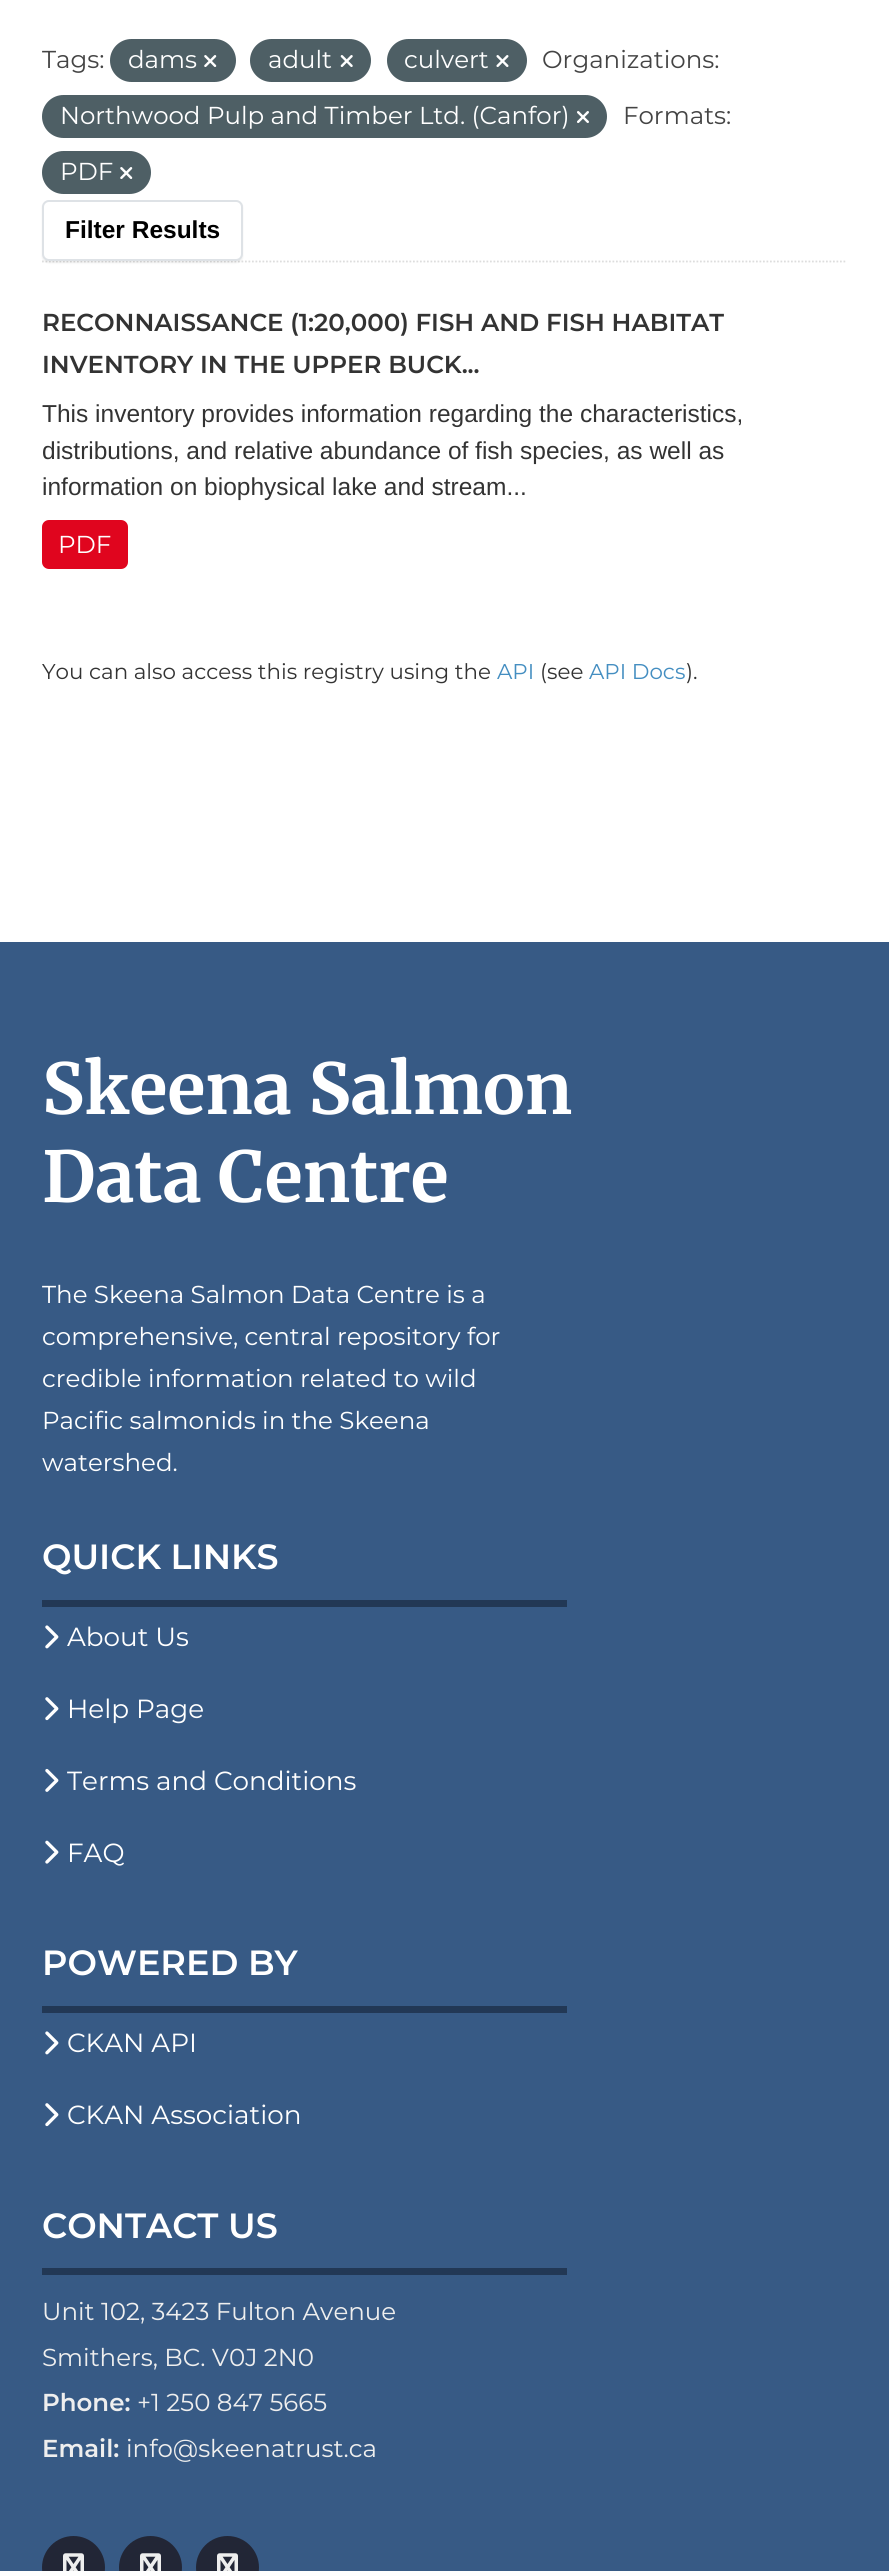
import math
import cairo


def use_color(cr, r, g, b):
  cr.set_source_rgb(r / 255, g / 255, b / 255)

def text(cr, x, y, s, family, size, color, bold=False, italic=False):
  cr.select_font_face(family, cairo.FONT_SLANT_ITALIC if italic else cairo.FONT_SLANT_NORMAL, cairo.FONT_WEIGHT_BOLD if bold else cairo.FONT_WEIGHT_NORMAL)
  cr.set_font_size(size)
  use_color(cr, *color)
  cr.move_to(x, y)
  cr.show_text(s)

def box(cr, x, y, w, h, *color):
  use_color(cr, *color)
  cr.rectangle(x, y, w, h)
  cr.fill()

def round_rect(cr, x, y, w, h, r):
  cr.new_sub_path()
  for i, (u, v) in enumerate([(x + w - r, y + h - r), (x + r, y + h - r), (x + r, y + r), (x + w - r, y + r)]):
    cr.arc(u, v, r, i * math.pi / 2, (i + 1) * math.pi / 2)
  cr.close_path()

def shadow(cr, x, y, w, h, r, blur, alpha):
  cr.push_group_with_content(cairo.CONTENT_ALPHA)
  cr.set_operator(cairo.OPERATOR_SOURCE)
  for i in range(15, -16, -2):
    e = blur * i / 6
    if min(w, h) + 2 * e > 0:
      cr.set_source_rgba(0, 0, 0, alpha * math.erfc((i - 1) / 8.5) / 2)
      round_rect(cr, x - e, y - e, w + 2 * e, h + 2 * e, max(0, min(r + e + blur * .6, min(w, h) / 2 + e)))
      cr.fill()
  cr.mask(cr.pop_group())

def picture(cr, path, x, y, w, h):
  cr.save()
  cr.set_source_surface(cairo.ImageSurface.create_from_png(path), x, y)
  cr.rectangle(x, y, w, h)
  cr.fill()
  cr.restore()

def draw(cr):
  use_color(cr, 255, 255, 255)
  cr.paint()
  cr.new_path()
  cr.move_to(42, 261.5)
  cr.line_to(847, 261.5)
  use_color(cr, 221, 221, 221)
  cr.set_line_width(1.8)
  cr.set_dash([1.75, 1.75])
  cr.stroke()
  use_color(cr, 78, 95, 101)
  round_rect(cr, 110, 39, 126, 43, 21.5)
  cr.fill()
  picture(cr, "img_01.png", 204, 55, 13, 12)
  round_rect(cr, 250, 39, 121, 43, 21.5)
  cr.fill()
  picture(cr, "img_02.png", 340, 55, 13, 12)
  round_rect(cr, 387, 39, 140, 43, 21.5)
  cr.fill()
  picture(cr, "img_03.png", 496, 55, 13, 12)
  round_rect(cr, 42, 95, 565, 43, 21.5)
  cr.fill()
  picture(cr, "img_04.png", 577, 111, 12, 12)
  round_rect(cr, 42, 151, 109, 43, 21.5)
  cr.fill()
  picture(cr, "img_01.png", 120, 167, 13, 12)
  use_color(cr, 0, 0, 0)
  shadow(cr, 42, 201, 201, 62, 7, 1, 0.07)
  use_color(cr, 255, 255, 255)
  round_rect(cr, 43, 201, 199, 59, 6)
  cr.fill_preserve()
  use_color(cr, 222, 226, 230)
  cr.set_line_width(2)
  cr.set_dash([])
  cr.stroke()
  use_color(cr, 224, 5, 30)
  round_rect(cr, 42, 520, 86, 49, 7)
  cr.fill()
  box(cr, 0, 942, 889, 1629, 55, 90, 133)
  box(cr, 42, 1600, 525, 7, 34, 56, 85)
  picture(cr, "img_05.png", 45, 1625, 14, 24)
  picture(cr, "img_06.png", 45, 1697, 14, 24)
  picture(cr, "img_07.png", 45, 1768, 14, 24)
  picture(cr, "img_08.png", 45, 1840, 14, 24)
  box(cr, 42, 2006, 525, 7, 34, 56, 85)
  picture(cr, "img_05.png", 45, 2031, 14, 24)
  picture(cr, "img_06.png", 45, 2103, 14, 24)
  box(cr, 42, 2268, 525, 7, 34, 56, 85)
  use_color(cr, 34, 38, 54)
  cr.arc(73.5, 2567.5, 31.5, 0, 2 * math.pi)
  cr.fill()
  picture(cr, "img_09.png", 63, 2553, 21, 18)
  cr.arc(150.5, 2567.5, 31.5, 0, 2 * math.pi)
  cr.fill()
  picture(cr, "img_09.png", 140, 2553, 21, 18)
  cr.arc(227.5, 2567.5, 31.5, 0, 2 * math.pi)
  cr.fill()
  picture(cr, "img_09.png", 217, 2553, 21, 18)
  text(cr, 42, 68, "Tags:", "Montserrat", 24.5, (68, 68, 68))
  text(cr, 128, 68, "dams", "Montserrat", 24.5, (255, 255, 255))
  text(cr, 268, 68, "adult", "Montserrat", 24.5, (255, 255, 255))
  text(cr, 404, 68, "culvert", "Montserrat", 24.5, (255, 255, 255))
  text(cr, 542, 68, "Organizations:", "Montserrat", 24.5, (68, 68, 68))
  text(cr, 60, 124, "Northwood Pulp and Timber Ltd. (Canfor)", "Montserrat", 24.5, (255, 255, 255))
  text(cr, 623, 124, "Formats:", "Montserrat", 24.5, (68, 68, 68))
  text(cr, 60, 180, "PDF", "Montserrat", 24.5, (255, 255, 255))
  text(cr, 65, 238, "Filter Results", "Liberation Sans", 24.5, (0, 0, 0), bold=True)
  text(cr, 42, 331, "RECONNAISSANCE (1:20,000) FISH AND FISH HABITAT", "Montserrat SemiBold", 24.5, (51, 51, 51))
  text(cr, 42, 373, "INVENTORY IN THE UPPER BUCK...", "Montserrat SemiBold", 24.5, (51, 51, 51))
  text(cr, 42, 422, "This inventory provides information regarding the characteristics,", "Liberation Sans", 24.5, (51, 51, 51))
  text(cr, 42, 459, "distributions, and relative abundance of fish species, as well as", "Liberation Sans", 24.5, (51, 51, 51))
  text(cr, 42, 495, "information on biophysical lake and stream...", "Liberation Sans", 24.5, (51, 51, 51))
  text(cr, 58, 553, "PDF", "Montserrat", 24.5, (255, 255, 255))
  text(cr, 42, 679, "You can also access this registry using the", "Montserrat", 21.4, (51, 51, 51))
  text(cr, 497, 679, "API", "Montserrat", 21.4, (68, 142, 193))
  text(cr, 540, 679, "(see", "Montserrat", 21.4, (51, 51, 51))
  text(cr, 589, 679, "API Docs", "Montserrat", 21.4, (68, 142, 193))
  text(cr, 686, 679, ").", "Montserrat", 21.4, (51, 51, 51))
  text(cr, 42, 1114, "Skeena Salmon", "Merriweather", 70, (255, 255, 255), bold=True)
  text(cr, 42, 1202, "Data Centre", "Merriweather", 70, (255, 255, 255), bold=True)
  text(cr, 42, 1303, "The Skeena Salmon Data Centre is a", "Montserrat", 24.5, (255, 255, 255))
  text(cr, 42, 1345, "comprehensive, central repository for", "Montserrat", 24.5, (255, 255, 255))
  text(cr, 42, 1387, "credible information related to wild", "Montserrat", 24.5, (255, 255, 255))
  text(cr, 42, 1429, "Pacific salmonids in the Skeena", "Montserrat", 24.5, (255, 255, 255))
  text(cr, 42, 1471, "watershed.", "Montserrat", 24.5, (255, 255, 255))
  text(cr, 42, 1569, "QUICK LINKS", "Montserrat SemiBold", 35, (255, 255, 255))
  text(cr, 67, 1646, "About Us", "Montserrat", 26.25, (255, 255, 255))
  text(cr, 67, 1718, "Help Page", "Montserrat", 26.25, (255, 255, 255))
  text(cr, 67, 1790, "Terms and Conditions", "Montserrat", 26.25, (255, 255, 255))
  text(cr, 67, 1862, "FAQ", "Montserrat", 26.25, (255, 255, 255))
  text(cr, 42, 1975, "POWERED BY", "Montserrat SemiBold", 35, (255, 255, 255))
  text(cr, 67, 2052, "CKAN API", "Montserrat", 26.25, (255, 255, 255))
  text(cr, 67, 2124, "CKAN Association", "Montserrat", 26.25, (255, 255, 255))
  text(cr, 42, 2238, "CONTACT US", "Montserrat SemiBold", 35, (255, 255, 255))
  text(cr, 42, 2320, "Unit 102, 3423 Fulton Avenue", "Montserrat", 24.5, (238, 238, 238))
  text(cr, 42, 2366, "Smithers, BC. V0J 2N0", "Montserrat", 24.5, (238, 238, 238))
  text(cr, 42, 2411, "Phone:", "Montserrat SemiBold", 24.5, (238, 238, 238))
  text(cr, 137, 2411, "+1 250 847 5665", "Montserrat", 24.5, (238, 238, 238))
  text(cr, 42, 2457, "Email:", "Montserrat SemiBold", 24.5, (238, 238, 238))
  text(cr, 126, 2457, "info@skeenatrust.ca", "Montserrat", 24.5, (238, 238, 238))


surface = cairo.ImageSurface(cairo.FORMAT_RGB24, 889, 2571)
cr = cairo.Context(surface)
options = cairo.FontOptions()
options.set_hint_metrics(cairo.HINT_METRICS_OFF)
options.set_hint_style(cairo.HINT_STYLE_NONE)
cr.set_font_options(options)
cr.set_miter_limit(4)
draw(cr)
surface.write_to_png("out.png")
